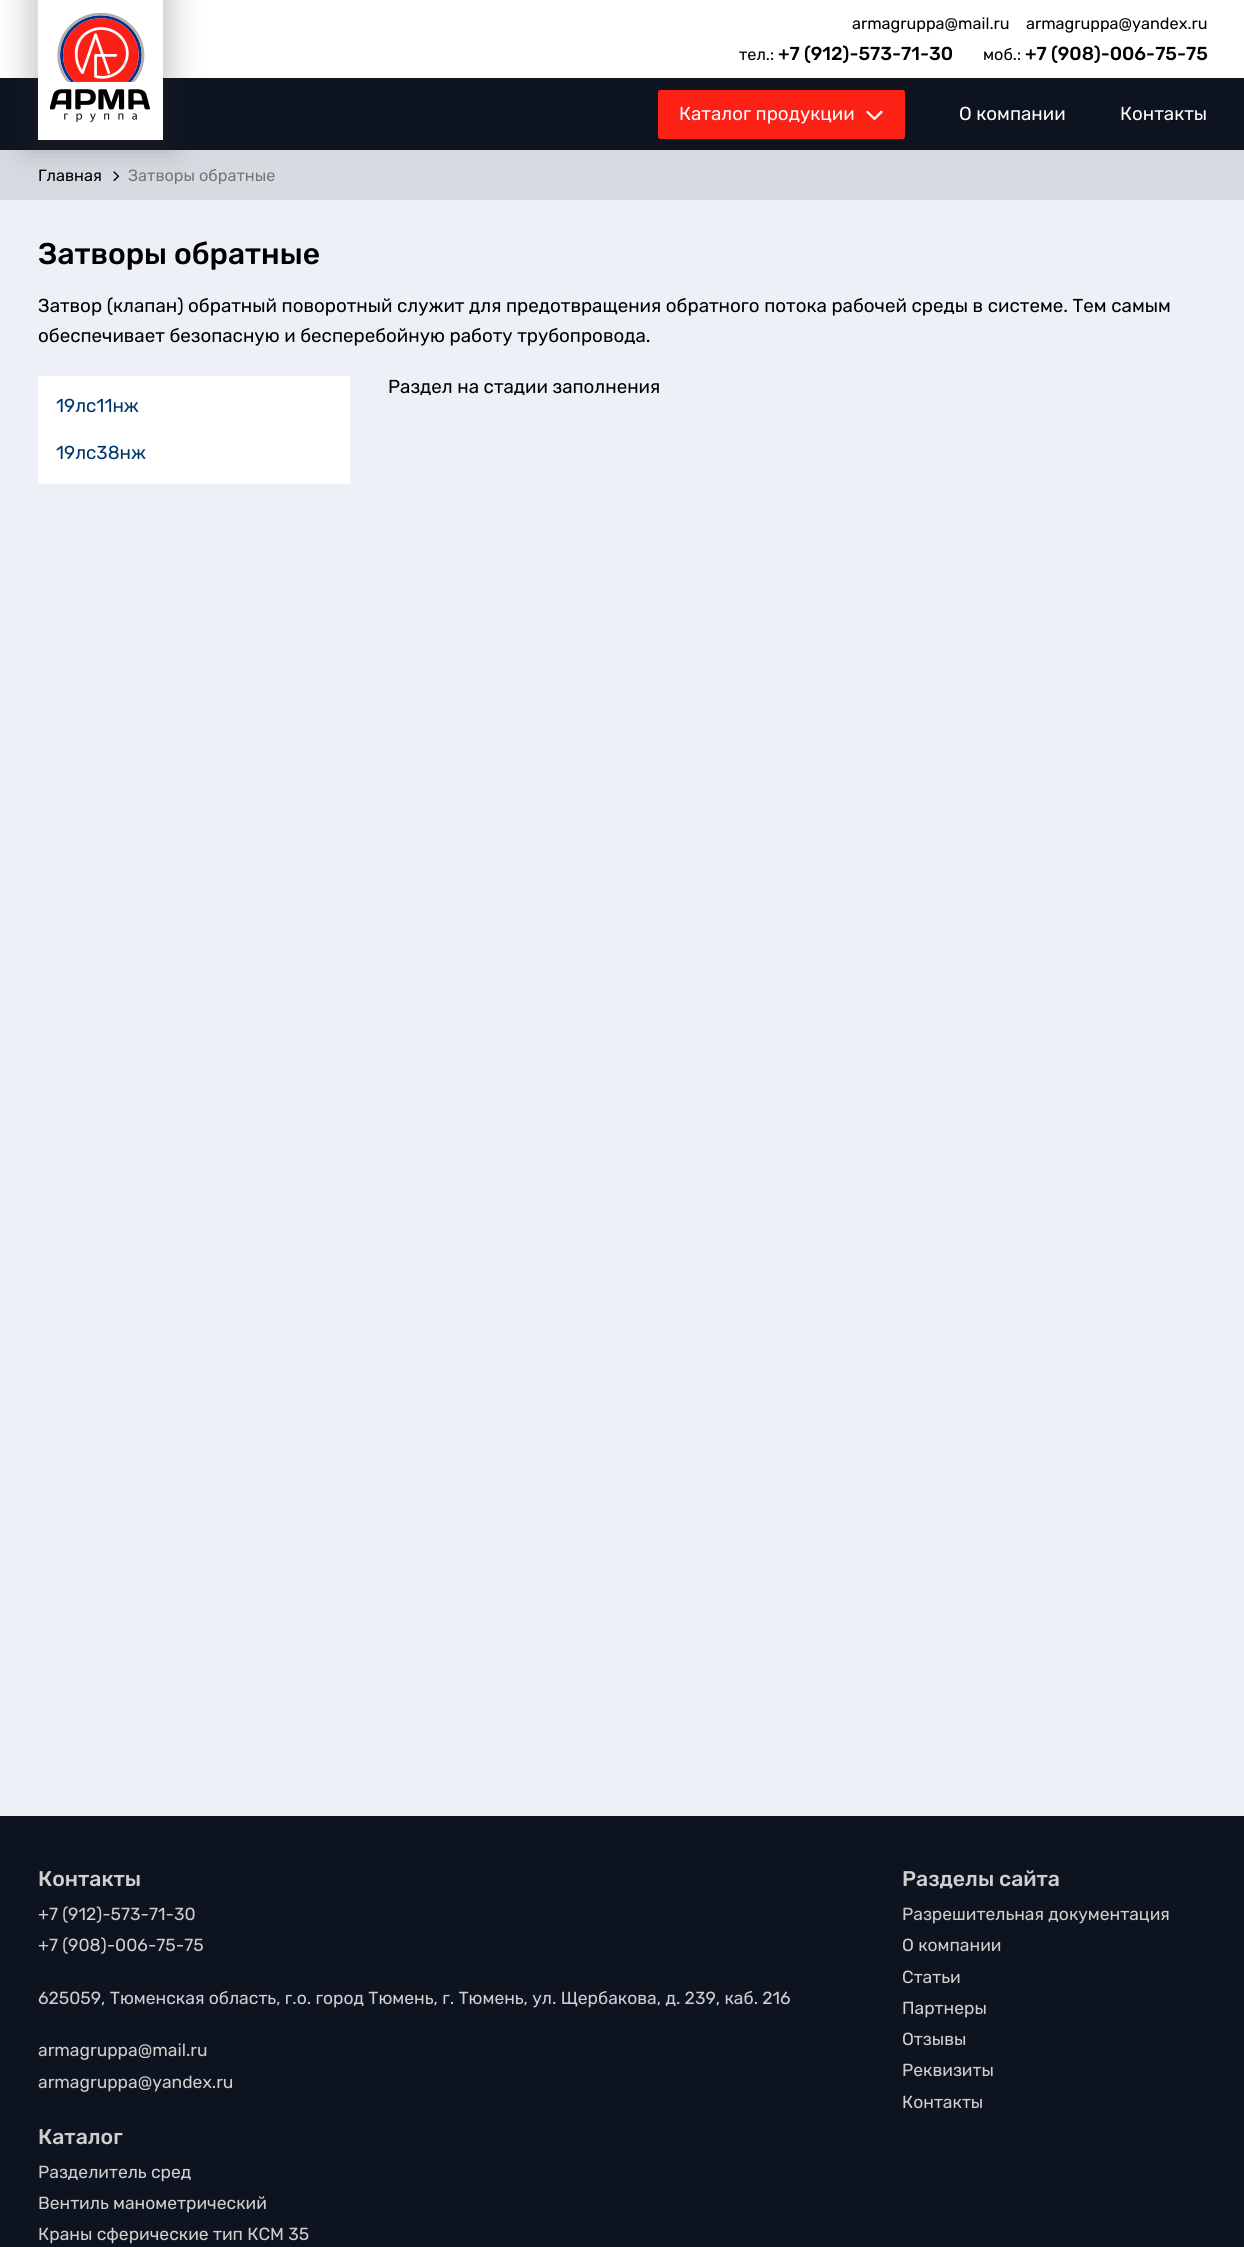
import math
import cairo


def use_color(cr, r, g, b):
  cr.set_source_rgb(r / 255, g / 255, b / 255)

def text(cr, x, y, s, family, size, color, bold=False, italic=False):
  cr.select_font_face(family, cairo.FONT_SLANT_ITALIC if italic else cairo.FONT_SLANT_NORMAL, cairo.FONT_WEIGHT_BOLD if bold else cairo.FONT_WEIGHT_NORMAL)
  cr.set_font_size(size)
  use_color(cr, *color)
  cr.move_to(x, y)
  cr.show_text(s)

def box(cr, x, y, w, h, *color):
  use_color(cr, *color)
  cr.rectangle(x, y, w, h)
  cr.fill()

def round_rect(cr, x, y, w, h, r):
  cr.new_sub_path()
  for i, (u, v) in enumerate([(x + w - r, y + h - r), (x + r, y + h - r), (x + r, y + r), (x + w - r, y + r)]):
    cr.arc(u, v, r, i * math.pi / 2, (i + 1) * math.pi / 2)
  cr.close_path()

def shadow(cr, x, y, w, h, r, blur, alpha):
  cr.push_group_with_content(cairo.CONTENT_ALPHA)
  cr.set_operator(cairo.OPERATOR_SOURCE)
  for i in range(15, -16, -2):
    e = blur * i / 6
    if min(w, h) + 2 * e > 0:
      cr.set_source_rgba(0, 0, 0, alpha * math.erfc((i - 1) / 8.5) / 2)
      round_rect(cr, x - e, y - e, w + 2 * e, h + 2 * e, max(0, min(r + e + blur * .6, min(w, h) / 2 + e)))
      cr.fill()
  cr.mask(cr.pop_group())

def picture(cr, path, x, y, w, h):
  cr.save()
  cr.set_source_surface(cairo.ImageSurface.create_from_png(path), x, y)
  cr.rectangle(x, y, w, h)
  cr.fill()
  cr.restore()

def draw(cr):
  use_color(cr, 237, 241, 247)
  cr.paint()
  box(cr, 0, 0, 1244, 78, 255, 255, 255)
  box(cr, 0, 78, 1244, 72, 14, 20, 31)
  box(cr, 0, 150, 1244, 50, 215, 219, 225)
  picture(cr, "img_02.png", 113, 171, 7, 10)
  use_color(cr, 41, 44, 51)
  shadow(cr, 26, -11, 148, 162, 0, 14.5, 0.23)
  box(cr, 38, 0, 125, 140, 255, 255, 255)
  picture(cr, "img_01.png", 50, 13, 100, 110)
  use_color(cr, 253, 32, 21)
  round_rect(cr, 658, 90, 247, 49, 2.5)
  cr.fill()
  use_color(cr, 255, 255, 255)
  cr.new_path()
  cr.move_to(867.5, 110.5)
  cr.line_to(875.5, 118.5)
  cr.line_to(874, 120)
  cr.line_to(866, 112)
  cr.close_path()
  cr.fill()
  cr.new_path()
  cr.move_to(883, 112)
  cr.line_to(875, 120)
  cr.line_to(873, 118.5)
  cr.line_to(881, 110.5)
  cr.close_path()
  cr.fill()
  box(cr, 38, 376, 312, 108, 255, 255, 255)
  box(cr, 0, 1816, 1244, 431, 14, 20, 31)
  text(cr, 852, 29, "armagruppa@mail.ru", "Rubik", 16.25, (0, 0, 0))
  text(cr, 1026, 29, "armagruppa@yandex.ru", "Rubik", 16.25, (0, 0, 0))
  text(cr, 739, 60, "тел.:", "Rubik", 16.25, (0, 0, 0))
  text(cr, 778, 60, "+7 (912)-573-71-30", "Rubik Medium", 18.75, (0, 0, 0))
  text(cr, 983, 60, "моб.:", "Rubik", 16.25, (0, 0, 0))
  text(cr, 1025, 60, "+7 (908)-006-75-75", "Rubik Medium", 18.75, (0, 0, 0))
  text(cr, 679, 120, "Каталог продукции", "Rubik", 18.75, (255, 255, 255))
  text(cr, 959, 120, "О компании", "Rubik", 18.75, (255, 255, 255))
  text(cr, 1120, 120, "Контакты", "Rubik", 18.75, (255, 255, 255))
  text(cr, 38, 181, "Главная", "Rubik", 16.25, (0, 0, 0))
  text(cr, 128, 181, "Затворы обратные", "Rubik", 16.25, (119, 119, 119))
  text(cr, 38, 264, "Затворы обратные", "Rubik Medium", 30, (0, 0, 0))
  text(cr, 38, 312, "Затвор (клапан) обратный поворотный служит для предотвращения обратного потока рабочей среды в системе. Тем самым", "Rubik", 18.75, (0, 0, 0))
  text(cr, 38, 342, "обеспечивает безопасную и бесперебойную работу трубопровода.", "Rubik", 18.75, (0, 0, 0))
  text(cr, 388, 393, "Раздел на стадии заполнения", "Rubik", 18.75, (0, 0, 0))
  text(cr, 56, 412, "19лс11нж", "Rubik", 18.75, (0, 55, 110))
  text(cr, 56, 459, "19лс38нж", "Rubik", 18.75, (0, 55, 110))
  text(cr, 38, 1886, "Контакты", "Rubik Medium", 21.25, (207, 207, 207))
  text(cr, 38, 1920, "+7 (912)-573-71-30", "Rubik", 17.5, (207, 207, 207))
  text(cr, 38, 1951, "+7 (908)-006-75-75", "Rubik", 17.5, (207, 207, 207))
  text(cr, 38, 2004, "625059, Тюменская область, г.о. город Тюмень, г. Тюмень, ул. Щербакова, д. 239, каб. 216", "Rubik", 17.5, (207, 207, 207))
  text(cr, 38, 2056, "armagruppa@mail.ru", "Rubik", 17.5, (207, 207, 207))
  text(cr, 38, 2088, "armagruppa@yandex.ru", "Rubik", 17.5, (207, 207, 207))
  text(cr, 902, 1886, "Разделы сайта", "Rubik Medium", 21.25, (207, 207, 207))
  text(cr, 902, 1920, "Разрешительная документация", "Rubik", 17.5, (207, 207, 207))
  text(cr, 902, 1951, "О компании", "Rubik", 17.5, (207, 207, 207))
  text(cr, 902, 1983, "Статьи", "Rubik", 17.5, (207, 207, 207))
  text(cr, 902, 2014, "Партнеры", "Rubik", 17.5, (207, 207, 207))
  text(cr, 902, 2045, "Отзывы", "Rubik", 17.5, (207, 207, 207))
  text(cr, 902, 2076, "Реквизиты", "Rubik", 17.5, (207, 207, 207))
  text(cr, 902, 2108, "Контакты", "Rubik", 17.5, (207, 207, 207))
  text(cr, 38, 2144, "Каталог", "Rubik Medium", 21.25, (207, 207, 207))
  text(cr, 38, 2178, "Разделитель сред", "Rubik", 17.5, (207, 207, 207))
  text(cr, 38, 2209, "Вентиль манометрический", "Rubik", 17.5, (207, 207, 207))
  text(cr, 38, 2240, "Краны сферические тип КСМ 35", "Rubik", 17.5, (207, 207, 207))


surface = cairo.ImageSurface(cairo.FORMAT_RGB24, 1244, 2247)
cr = cairo.Context(surface)
options = cairo.FontOptions()
options.set_hint_metrics(cairo.HINT_METRICS_OFF)
options.set_hint_style(cairo.HINT_STYLE_NONE)
cr.set_font_options(options)
cr.set_miter_limit(4)
draw(cr)
surface.write_to_png("out.png")
